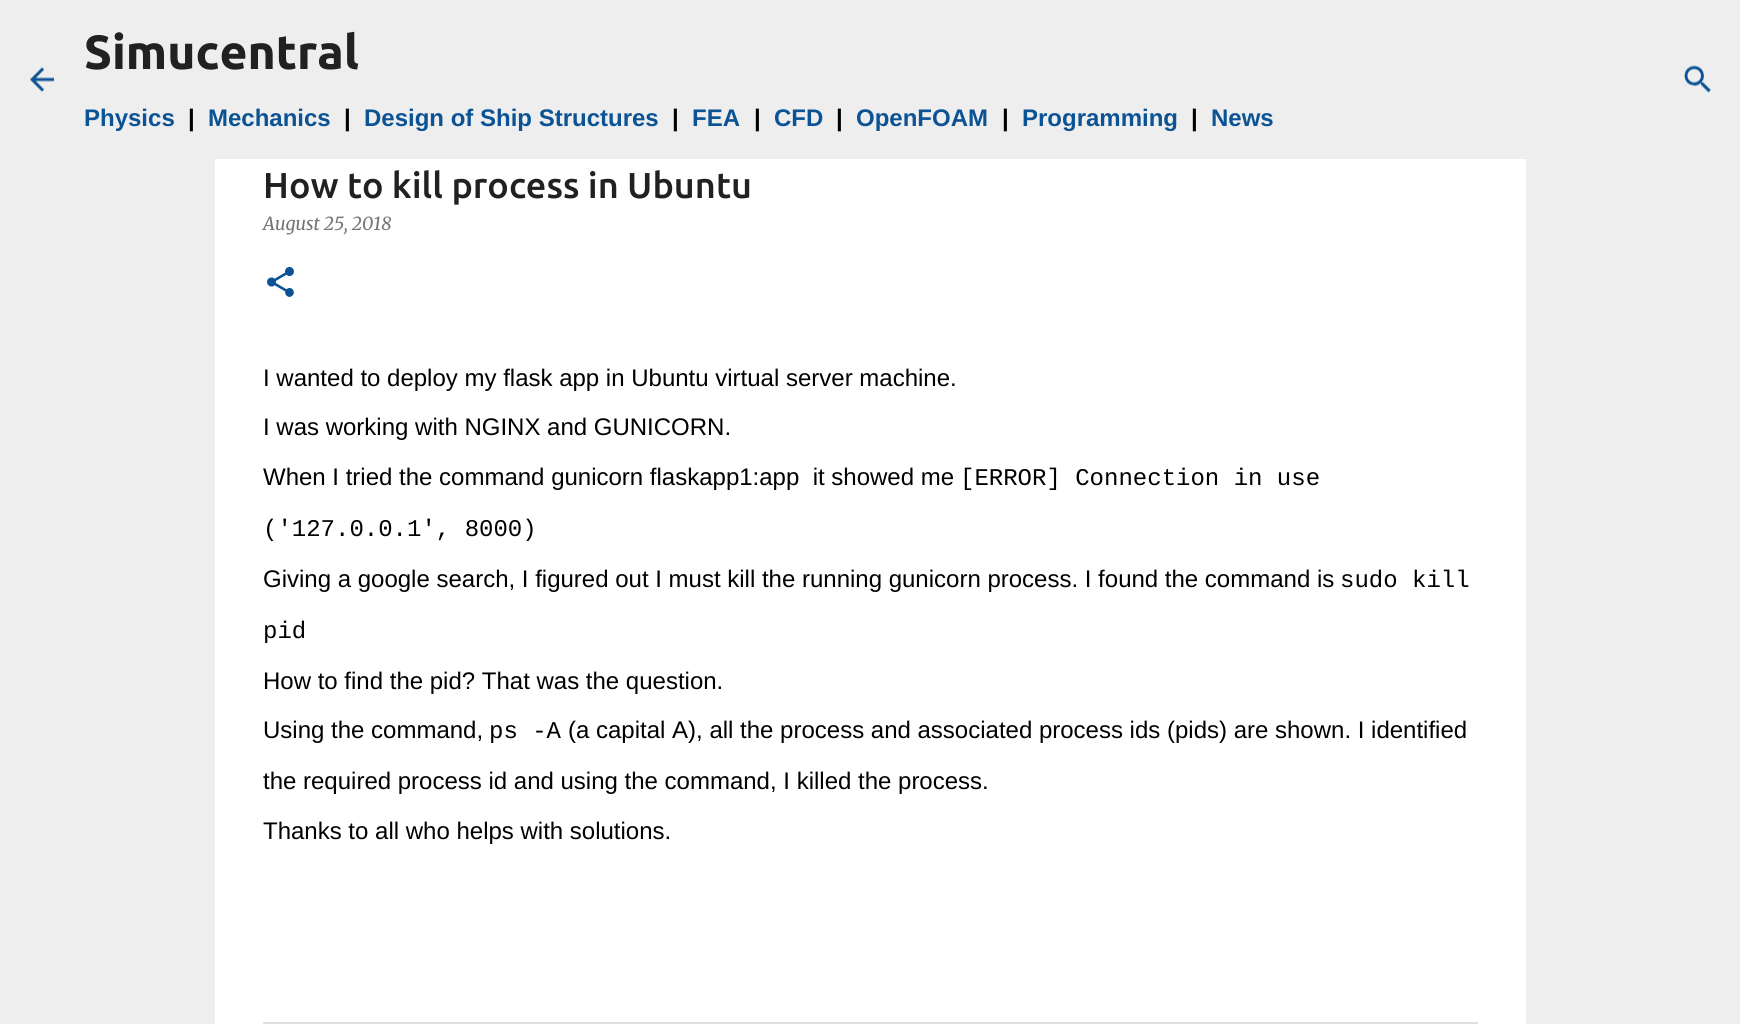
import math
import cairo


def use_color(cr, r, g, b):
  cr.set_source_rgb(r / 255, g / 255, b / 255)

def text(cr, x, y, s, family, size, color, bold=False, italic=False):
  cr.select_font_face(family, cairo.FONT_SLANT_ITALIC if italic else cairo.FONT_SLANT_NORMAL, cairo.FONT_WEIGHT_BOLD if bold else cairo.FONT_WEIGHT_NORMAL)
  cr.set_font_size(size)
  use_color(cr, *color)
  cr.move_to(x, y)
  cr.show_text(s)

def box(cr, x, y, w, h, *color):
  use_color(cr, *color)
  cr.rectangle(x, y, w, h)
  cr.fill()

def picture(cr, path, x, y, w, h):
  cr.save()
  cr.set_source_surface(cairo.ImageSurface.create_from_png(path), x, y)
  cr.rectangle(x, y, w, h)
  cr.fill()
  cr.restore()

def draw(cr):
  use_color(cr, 238, 238, 238)
  cr.paint()
  picture(cr, "img_01.png", 30, 67, 24, 25)
  picture(cr, "img_02.png", 1684, 65, 27, 28)
  box(cr, 215, 159, 1311, 865, 255, 255, 255)
  box(cr, 263, 1022, 1215, 2, 224, 224, 224)
  picture(cr, "img_03.png", 267, 267, 27, 30)
  text(cr, 84, 69, "Simucentral", "Ubuntu", 48, (33, 33, 33), bold=True)
  text(cr, 84, 126, "Physics", "Liberation Sans", 24, (11, 83, 148), bold=True)
  text(cr, 188, 126, "|", "Liberation Sans", 24, (0, 0, 0), bold=True)
  text(cr, 208, 126, "Mechanics", "Liberation Sans", 24, (11, 83, 148), bold=True)
  text(cr, 344, 126, "|", "Liberation Sans", 24, (0, 0, 0), bold=True)
  text(cr, 364, 126, "Design of Ship Structures", "Liberation Sans", 24, (11, 83, 148), bold=True)
  text(cr, 672, 126, "|", "Liberation Sans", 24, (0, 0, 0), bold=True)
  text(cr, 692, 126, "FEA", "Liberation Sans", 24, (11, 83, 148), bold=True)
  text(cr, 754, 126, "|", "Liberation Sans", 24, (0, 0, 0), bold=True)
  text(cr, 774, 126, "CFD", "Liberation Sans", 24, (11, 83, 148), bold=True)
  text(cr, 836, 126, "|", "Liberation Sans", 24, (0, 0, 0), bold=True)
  text(cr, 856, 126, "OpenFOAM", "Liberation Sans", 24, (11, 83, 148), bold=True)
  text(cr, 1002, 126, "|", "Liberation Sans", 24, (0, 0, 0), bold=True)
  text(cr, 1022, 126, "Programming", "Liberation Sans", 24, (11, 83, 148), bold=True)
  text(cr, 1191, 126, "|", "Liberation Sans", 24, (0, 0, 0), bold=True)
  text(cr, 1211, 126, "News", "Liberation Sans", 24, (11, 83, 148), bold=True)
  text(cr, 263, 198, "How to kill process in Ubuntu", "Ubuntu Medium", 36, (33, 33, 33))
  text(cr, 263, 230, "August 25, 2018", "Merriweather", 18, (117, 117, 117), italic=True)
  text(cr, 263, 386, "I wanted to deploy my flask app in Ubuntu virtual server machine.", "Liberation Sans", 24, (0, 0, 0))
  text(cr, 263, 435, "I was working with NGINX and GUNICORN.", "Liberation Sans", 24, (0, 0, 0))
  text(cr, 263, 485, "When I tried the command gunicorn flaskapp1:app  it showed me", "Liberation Sans", 24, (0, 0, 0))
  text(cr, 960, 485, "[ERROR] Connection in use", "Liberation Mono", 24, (0, 0, 0))
  text(cr, 263, 536, "('127.0.0.1', 8000)", "Liberation Mono", 24, (0, 0, 0))
  text(cr, 263, 587, "Giving a google search, I figured out I must kill the running gunicorn process. I found the command is", "Liberation Sans", 24, (0, 0, 0))
  text(cr, 1340, 587, "sudo kill", "Liberation Mono", 24, (0, 0, 0))
  text(cr, 263, 638, "pid", "Liberation Mono", 24, (0, 0, 0))
  text(cr, 263, 689, "How to find the pid? That was the question.", "Liberation Sans", 24, (0, 0, 0))
  text(cr, 263, 738, "Using the command,", "Liberation Sans", 24, (0, 0, 0))
  text(cr, 489, 738, "ps -A", "Liberation Mono", 24, (0, 0, 0))
  text(cr, 568, 738, "(a capital A), all the process and associated process ids (pids) are shown. I identified", "Liberation Sans", 24, (0, 0, 0))
  text(cr, 263, 789, "the required process id and using the command, I killed the process.", "Liberation Sans", 24, (0, 0, 0))
  text(cr, 263, 839, "Thanks to all who helps with solutions.", "Liberation Sans", 24, (0, 0, 0))


surface = cairo.ImageSurface(cairo.FORMAT_RGB24, 1740, 1024)
cr = cairo.Context(surface)
options = cairo.FontOptions()
options.set_hint_metrics(cairo.HINT_METRICS_OFF)
options.set_hint_style(cairo.HINT_STYLE_NONE)
cr.set_font_options(options)
cr.set_miter_limit(4)
draw(cr)
surface.write_to_png("out.png")
